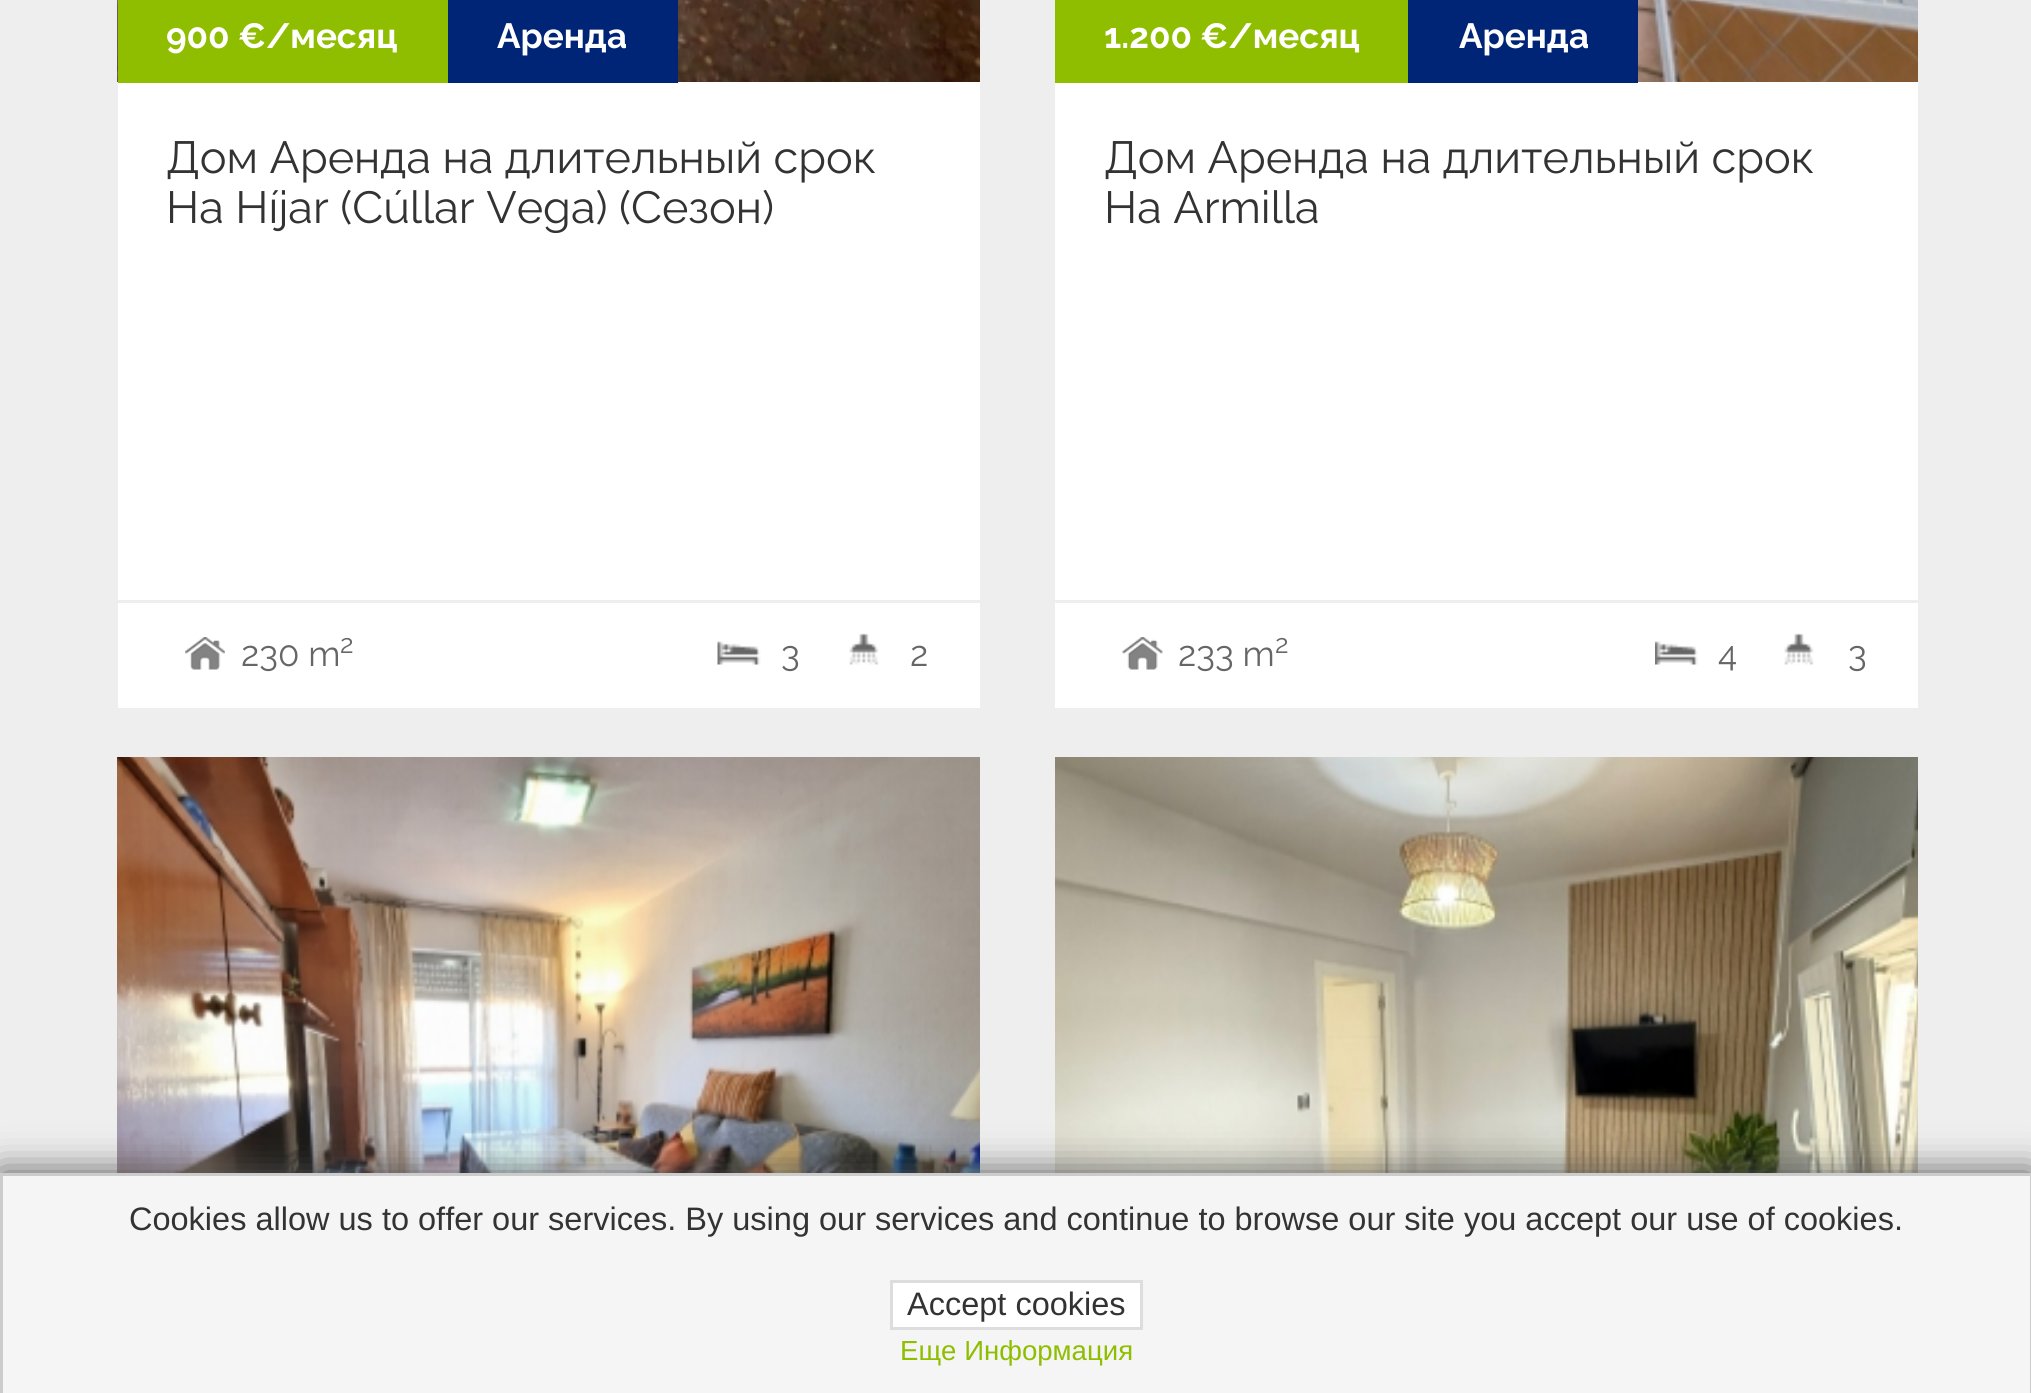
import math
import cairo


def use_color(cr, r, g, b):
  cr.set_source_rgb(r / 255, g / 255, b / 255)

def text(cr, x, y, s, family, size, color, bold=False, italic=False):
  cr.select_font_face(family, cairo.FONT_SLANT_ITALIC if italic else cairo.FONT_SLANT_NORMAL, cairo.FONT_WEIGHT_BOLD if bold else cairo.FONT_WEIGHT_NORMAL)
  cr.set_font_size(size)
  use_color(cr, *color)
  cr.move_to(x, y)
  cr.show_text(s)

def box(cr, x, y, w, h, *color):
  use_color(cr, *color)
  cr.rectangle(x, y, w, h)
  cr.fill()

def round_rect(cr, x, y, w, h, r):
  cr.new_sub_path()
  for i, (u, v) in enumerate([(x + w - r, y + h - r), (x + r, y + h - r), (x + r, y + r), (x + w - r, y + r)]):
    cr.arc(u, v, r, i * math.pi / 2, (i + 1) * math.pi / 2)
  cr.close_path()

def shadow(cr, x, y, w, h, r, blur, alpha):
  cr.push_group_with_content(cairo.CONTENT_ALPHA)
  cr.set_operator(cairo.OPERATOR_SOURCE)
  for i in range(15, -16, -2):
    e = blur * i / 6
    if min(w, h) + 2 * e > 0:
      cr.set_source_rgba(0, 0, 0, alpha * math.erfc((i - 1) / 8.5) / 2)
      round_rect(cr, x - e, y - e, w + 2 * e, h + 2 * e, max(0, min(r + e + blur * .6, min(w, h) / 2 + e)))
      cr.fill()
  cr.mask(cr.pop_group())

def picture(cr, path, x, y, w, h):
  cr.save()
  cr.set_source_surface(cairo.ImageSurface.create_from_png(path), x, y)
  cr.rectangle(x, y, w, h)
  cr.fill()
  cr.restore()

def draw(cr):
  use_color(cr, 238, 238, 238)
  cr.paint()
  box(cr, 118, 82, 862, 626, 255, 255, 255)
  picture(cr, "img_01.png", 117, 0, 863, 82)
  box(cr, 118, 0, 330, 83, 143, 190, 0)
  box(cr, 448, 0, 230, 83, 0, 37, 119)
  box(cr, 118, 600, 862, 3, 238, 238, 238)
  picture(cr, "img_02.png", 185, 637, 40, 33)
  picture(cr, "img_03.png", 717, 641, 44, 24)
  picture(cr, "img_04.png", 849, 633, 30, 32)
  box(cr, 1055, 82, 863, 626, 255, 255, 255)
  box(cr, 1055, 0, 353, 83, 143, 190, 0)
  box(cr, 1408, 0, 230, 83, 0, 37, 119)
  picture(cr, "img_05.png", 1638, 0, 280, 82)
  box(cr, 1055, 600, 863, 3, 238, 238, 238)
  picture(cr, "img_06.png", 1122, 637, 41, 33)
  picture(cr, "img_07.png", 1655, 641, 43, 24)
  picture(cr, "img_04.png", 1784, 633, 30, 32)
  picture(cr, "img_08.png", 117, 757, 863, 416)
  picture(cr, "img_09.png", 1055, 757, 863, 416)
  use_color(cr, 85, 85, 85)
  shadow(cr, 0, 1173, 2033, 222, 0, 19, 1)
  box(cr, 3, 1176, 2027, 217, 245, 245, 245)
  box(cr, 0, 1173, 2031, 3, 204, 204, 204)
  box(cr, 2030, 1173, 1, 220, 204, 204, 204)
  box(cr, 0, 1173, 3, 220, 204, 204, 204)
  use_color(cr, 255, 255, 255)
  cr.rectangle(891.5, 1281.5, 250, 47)
  cr.fill_preserve()
  use_color(cr, 221, 221, 221)
  cr.set_line_width(3)
  cr.stroke()
  text(cr, 166, 48, "900 €/месяц", "Raleway", 35, (255, 255, 255), bold=True)
  text(cr, 497, 48, "Аренда", "Raleway", 35, (255, 255, 255), bold=True)
  text(cr, 166, 173, "Дом Аренда на длительный срок", "Raleway", 45, (51, 51, 51))
  text(cr, 166, 223, "На Híjar (Cúllar Vega) (Cезон)", "Raleway", 45, (51, 51, 51))
  text(cr, 241, 666, "230 m", "Raleway", 35, (102, 102, 102))
  text(cr, 340, 653, "2", "Raleway", 26, (102, 102, 102))
  text(cr, 781, 666, "3", "Raleway", 35, (102, 102, 102))
  text(cr, 910, 666, "2", "Raleway", 35, (102, 102, 102))
  text(cr, 1104, 48, "1.200 €/месяц", "Raleway", 35, (255, 255, 255), bold=True)
  text(cr, 1459, 48, "Аренда", "Raleway", 35, (255, 255, 255), bold=True)
  text(cr, 1104, 173, "Дом Аренда на длительный срок", "Raleway", 45, (51, 51, 51))
  text(cr, 1104, 223, "На Armilla", "Raleway", 45, (51, 51, 51))
  text(cr, 1178, 666, "233 m", "Raleway", 35, (102, 102, 102))
  text(cr, 1275, 653, "2", "Raleway", 26, (102, 102, 102))
  text(cr, 1718, 666, "4", "Raleway", 35, (102, 102, 102))
  text(cr, 1848, 666, "3", "Raleway", 35, (102, 102, 102))
  text(cr, 129, 1230, "Cookies allow us to offer our services. By using our services and continue to browse our site you accept our use of cookies.", "Liberation Sans", 32.5, (51, 51, 51))
  text(cr, 907, 1315, "Accept cookies", "Liberation Sans", 32.5, (51, 51, 51))
  text(cr, 900, 1360, "Еще Информация", "Liberation Sans", 27.6, (143, 190, 0))


surface = cairo.ImageSurface(cairo.FORMAT_RGB24, 2031, 1393)
cr = cairo.Context(surface)
options = cairo.FontOptions()
options.set_hint_metrics(cairo.HINT_METRICS_OFF)
options.set_hint_style(cairo.HINT_STYLE_NONE)
cr.set_font_options(options)
cr.set_miter_limit(4)
draw(cr)
surface.write_to_png("out.png")
